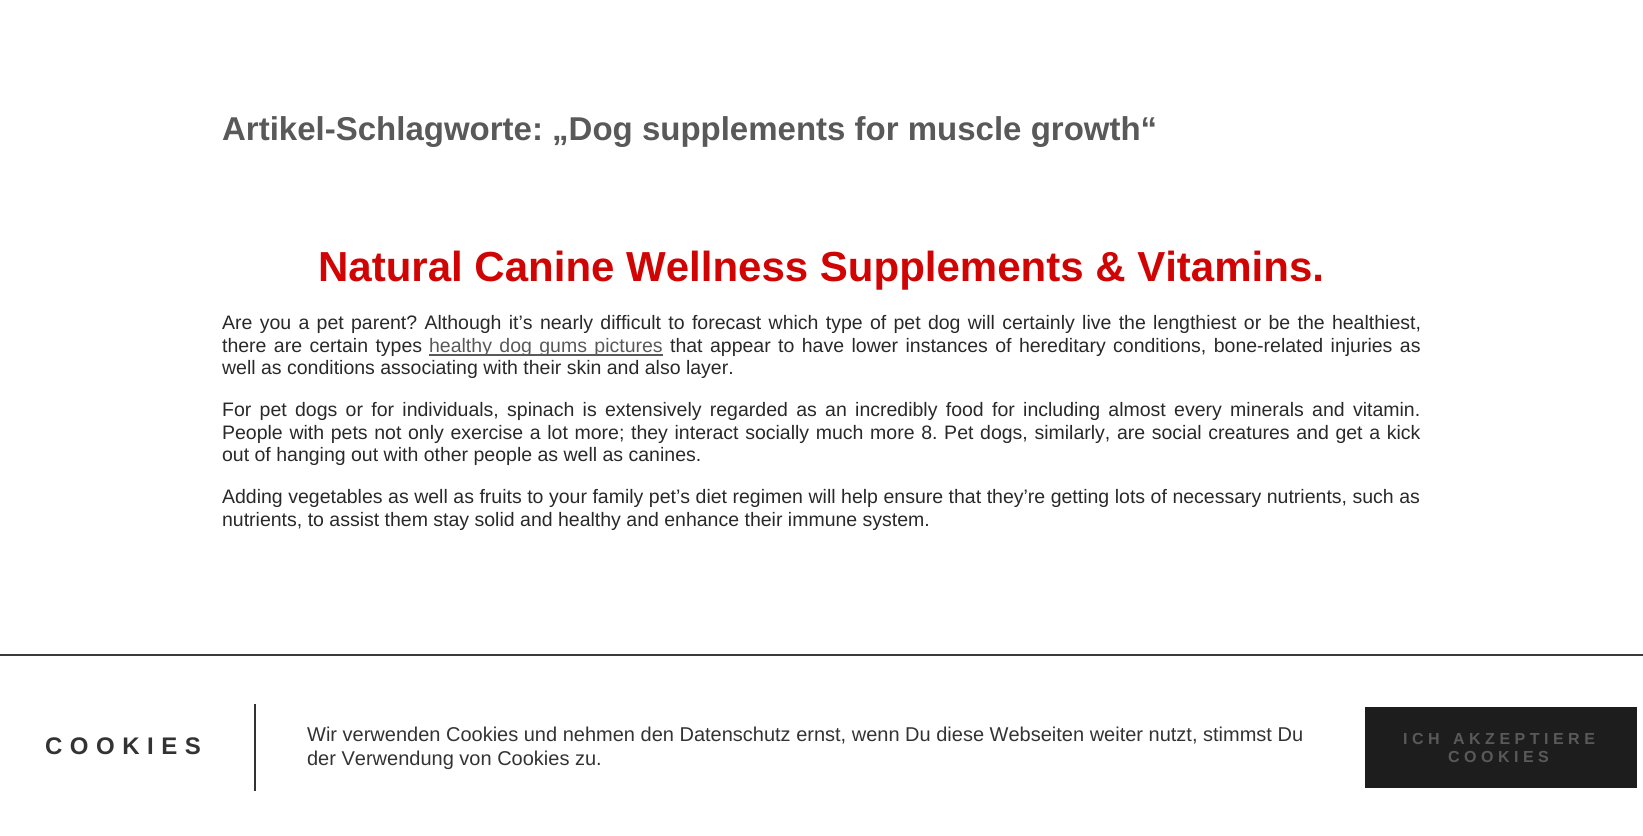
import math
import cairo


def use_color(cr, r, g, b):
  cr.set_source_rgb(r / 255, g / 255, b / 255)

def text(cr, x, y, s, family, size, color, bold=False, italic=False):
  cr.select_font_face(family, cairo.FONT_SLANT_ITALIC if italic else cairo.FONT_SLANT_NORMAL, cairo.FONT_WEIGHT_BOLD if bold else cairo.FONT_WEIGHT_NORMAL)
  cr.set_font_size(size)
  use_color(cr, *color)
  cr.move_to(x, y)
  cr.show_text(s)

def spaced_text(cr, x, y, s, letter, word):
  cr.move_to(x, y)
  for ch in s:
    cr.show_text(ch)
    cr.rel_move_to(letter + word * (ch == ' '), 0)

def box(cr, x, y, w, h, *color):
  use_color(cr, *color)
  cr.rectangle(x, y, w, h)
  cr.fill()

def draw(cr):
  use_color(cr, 255, 255, 255)
  cr.paint()
  box(cr, 429, 354, 234, 2, 89, 89, 89)
  box(cr, 0, 654, 1643, 2, 59, 57, 57)
  box(cr, 254, 704, 2, 87, 51, 51, 51)
  box(cr, 1365, 707, 272, 81, 29, 29, 29)
  text(cr, 222, 140, "Artikel-Schlagworte: „Dog supplements for muscle growth“", "Liberation Sans", 33, (89, 89, 89), bold=True)
  text(cr, 318, 281, "Natural Canine Wellness Supplements & Vitamins.", "Liberation Sans", 42, (209, 4, 4), bold=True)
  cr.select_font_face("Liberation Sans")
  cr.set_font_size(19.5)
  use_color(cr, 41, 41, 41)
  spaced_text(cr, 222, 329, "Are you a pet parent? Although it’s nearly difficult to forecast which type of pet dog will certainly live the lengthiest or be the healthiest,", 0, 1.9)
  spaced_text(cr, 222, 352, "there are certain types", 0, 2)
  use_color(cr, 89, 89, 89)
  spaced_text(cr, 429, 352, "healthy dog gums pictures", 0, 2)
  use_color(cr, 41, 41, 41)
  spaced_text(cr, 670, 352, "that appear to have lower instances of hereditary conditions, bone-related injuries as", 0, 2)
  text(cr, 222, 374, "well as conditions associating with their skin and also layer.", "Liberation Sans", 19.5, (41, 41, 41))
  spaced_text(cr, 222, 416, "For pet dogs or for individuals, spinach is extensively regarded as an incredibly food for including almost every minerals and vitamin.", 0, 2.9)
  spaced_text(cr, 222, 439, "People with pets not only exercise a lot more; they interact socially much more 8. Pet dogs, similarly, are social creatures and get a kick", 0, 1.25)
  text(cr, 222, 461, "out of hanging out with other people as well as canines.", "Liberation Sans", 19.5, (41, 41, 41))
  spaced_text(cr, 222, 503, "Adding vegetables as well as fruits to your family pet’s diet regimen will help ensure that they’re getting lots of necessary nutrients, such as", 0, 0.1)
  text(cr, 222, 526, "nutrients, to assist them stay solid and healthy and enhance their immune system.", "Liberation Sans", 19.5, (41, 41, 41))
  cr.select_font_face("Liberation Sans", cairo.FONT_SLANT_NORMAL, cairo.FONT_WEIGHT_BOLD)
  cr.set_font_size(24)
  use_color(cr, 51, 51, 51)
  spaced_text(cr, 45, 754, "COOKIES", 7.5, 0)
  text(cr, 307, 741, "Wir verwenden Cookies und nehmen den Datenschutz ernst, wenn Du diese Webseiten weiter nutzt, stimmst Du", "Liberation Sans", 20, (51, 51, 51))
  text(cr, 307, 765, "der Verwendung von Cookies zu.", "Liberation Sans", 20, (51, 51, 51))
  cr.select_font_face("Liberation Sans", cairo.FONT_SLANT_NORMAL, cairo.FONT_WEIGHT_BOLD)
  cr.set_font_size(16)
  use_color(cr, 89, 89, 89)
  spaced_text(cr, 1403, 744, "ICH AKZEPTIERE", 4.5, 0)
  spaced_text(cr, 1448, 762, "COOKIES", 4.5, 0)


surface = cairo.ImageSurface(cairo.FORMAT_RGB24, 1643, 836)
cr = cairo.Context(surface)
options = cairo.FontOptions()
options.set_hint_metrics(cairo.HINT_METRICS_OFF)
options.set_hint_style(cairo.HINT_STYLE_NONE)
cr.set_font_options(options)
cr.set_miter_limit(4)
draw(cr)
surface.write_to_png("out.png")
